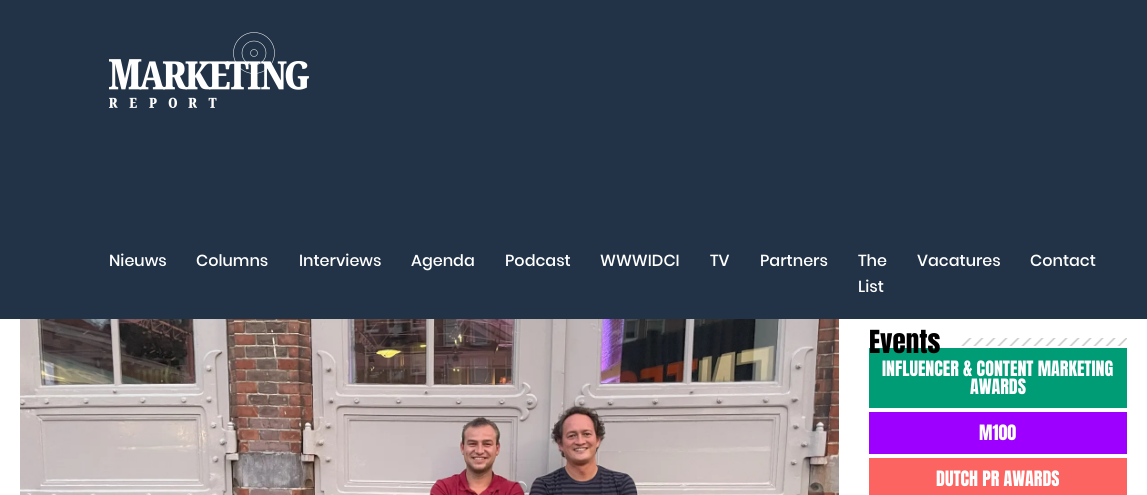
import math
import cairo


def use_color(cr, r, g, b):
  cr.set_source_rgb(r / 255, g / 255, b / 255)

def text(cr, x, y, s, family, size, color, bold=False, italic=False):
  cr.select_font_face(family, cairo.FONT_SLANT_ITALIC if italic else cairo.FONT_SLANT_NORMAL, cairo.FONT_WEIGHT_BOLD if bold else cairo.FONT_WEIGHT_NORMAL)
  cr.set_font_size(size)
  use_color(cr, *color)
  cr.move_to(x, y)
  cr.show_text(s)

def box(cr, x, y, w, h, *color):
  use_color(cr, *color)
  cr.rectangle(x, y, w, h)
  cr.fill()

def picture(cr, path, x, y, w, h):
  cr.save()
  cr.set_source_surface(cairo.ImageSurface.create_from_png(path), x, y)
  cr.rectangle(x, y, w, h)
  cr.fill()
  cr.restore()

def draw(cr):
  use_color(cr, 255, 255, 255)
  cr.paint()
  box(cr, 0, 0, 1147, 319, 34, 51, 72)
  picture(cr, "img_01.png", 109, 32, 200, 76)
  picture(cr, "img_02.png", 20, 319, 819, 176)
  picture(cr, "img_03.png", 961, 338, 166, 8)
  box(cr, 869, 348, 258, 60, 0, 156, 118)
  box(cr, 869, 412, 258, 42, 157, 0, 255)
  box(cr, 869, 458, 258, 37, 252, 100, 98)
  text(cr, 109, 266, "Nieuws", "Poppins Medium", 16, (255, 255, 255))
  text(cr, 196, 266, "Columns", "Poppins Medium", 16, (255, 255, 255))
  text(cr, 299, 266, "Interviews", "Poppins Medium", 16, (255, 255, 255))
  text(cr, 411, 266, "Agenda", "Poppins Medium", 16, (255, 255, 255))
  text(cr, 505, 266, "Podcast", "Poppins Medium", 16, (255, 255, 255))
  text(cr, 600, 266, "WWWIDCI", "Poppins Medium", 16, (255, 255, 255))
  text(cr, 710, 266, "TV", "Poppins Medium", 16, (255, 255, 255))
  text(cr, 760, 266, "Partners", "Poppins Medium", 16, (255, 255, 255))
  text(cr, 858, 266, "The", "Poppins Medium", 16, (255, 255, 255))
  text(cr, 858, 292, "List", "Poppins Medium", 16, (255, 255, 255))
  text(cr, 917, 266, "Vacatures", "Poppins Medium", 16, (255, 255, 255))
  text(cr, 1030, 266, "Contact", "Poppins Medium", 16, (255, 255, 255))
  text(cr, 869, 353, "Events", "Anton", 27, (0, 0, 0))
  text(cr, 882, 376, "INFLUENCER & CONTENT MARKETING", "Anton", 18, (255, 255, 255))
  text(cr, 970, 394, "AWARDS", "Anton", 18, (255, 255, 255))
  text(cr, 979, 440, "M100", "Anton", 18, (255, 255, 255))
  text(cr, 936, 486, "DUTCH PR AWARDS", "Anton", 18, (255, 255, 255))


surface = cairo.ImageSurface(cairo.FORMAT_RGB24, 1147, 495)
cr = cairo.Context(surface)
options = cairo.FontOptions()
options.set_hint_metrics(cairo.HINT_METRICS_OFF)
options.set_hint_style(cairo.HINT_STYLE_NONE)
cr.set_font_options(options)
cr.set_miter_limit(4)
draw(cr)
surface.write_to_png("out.png")
